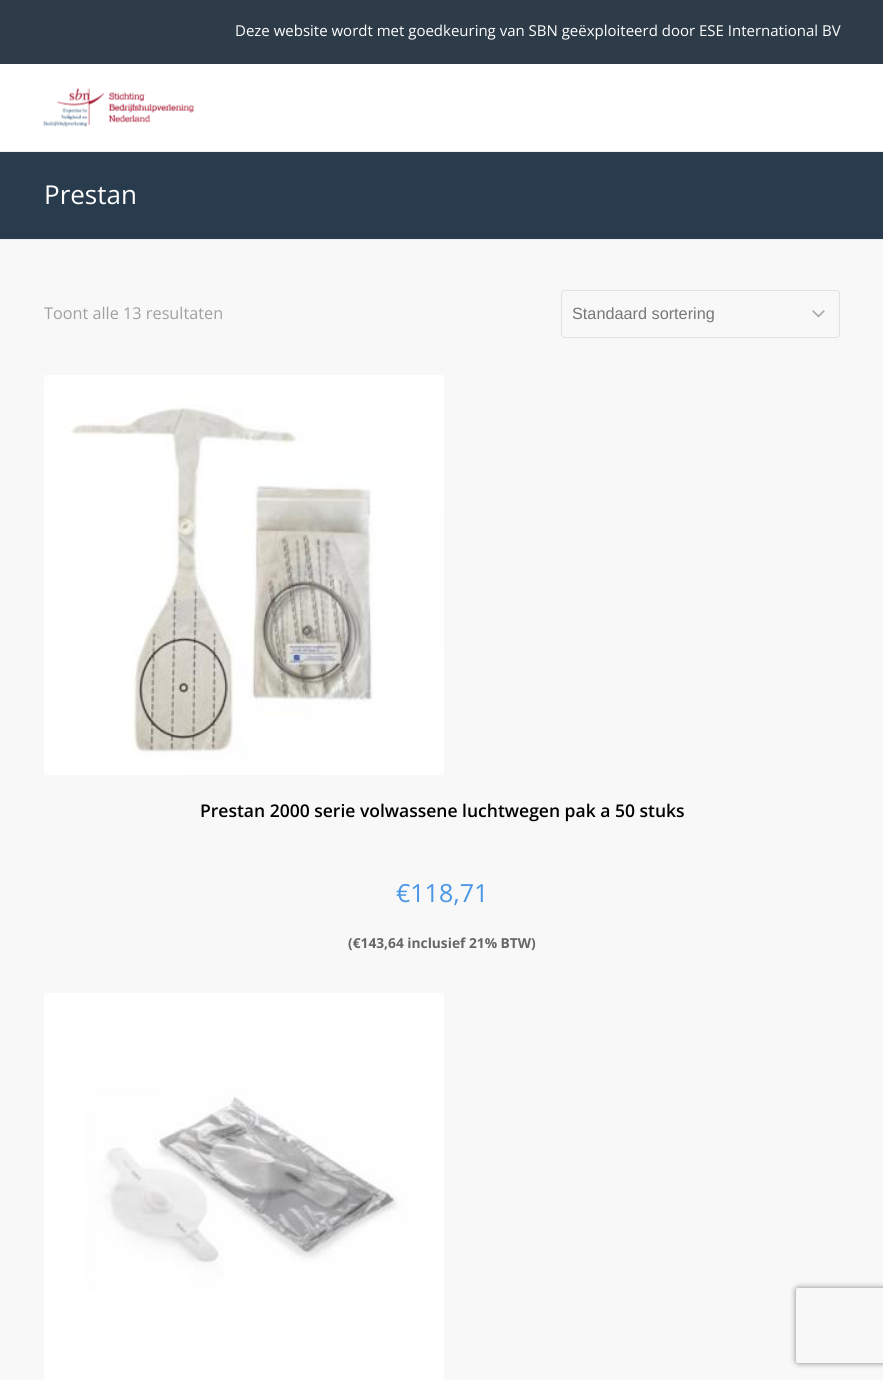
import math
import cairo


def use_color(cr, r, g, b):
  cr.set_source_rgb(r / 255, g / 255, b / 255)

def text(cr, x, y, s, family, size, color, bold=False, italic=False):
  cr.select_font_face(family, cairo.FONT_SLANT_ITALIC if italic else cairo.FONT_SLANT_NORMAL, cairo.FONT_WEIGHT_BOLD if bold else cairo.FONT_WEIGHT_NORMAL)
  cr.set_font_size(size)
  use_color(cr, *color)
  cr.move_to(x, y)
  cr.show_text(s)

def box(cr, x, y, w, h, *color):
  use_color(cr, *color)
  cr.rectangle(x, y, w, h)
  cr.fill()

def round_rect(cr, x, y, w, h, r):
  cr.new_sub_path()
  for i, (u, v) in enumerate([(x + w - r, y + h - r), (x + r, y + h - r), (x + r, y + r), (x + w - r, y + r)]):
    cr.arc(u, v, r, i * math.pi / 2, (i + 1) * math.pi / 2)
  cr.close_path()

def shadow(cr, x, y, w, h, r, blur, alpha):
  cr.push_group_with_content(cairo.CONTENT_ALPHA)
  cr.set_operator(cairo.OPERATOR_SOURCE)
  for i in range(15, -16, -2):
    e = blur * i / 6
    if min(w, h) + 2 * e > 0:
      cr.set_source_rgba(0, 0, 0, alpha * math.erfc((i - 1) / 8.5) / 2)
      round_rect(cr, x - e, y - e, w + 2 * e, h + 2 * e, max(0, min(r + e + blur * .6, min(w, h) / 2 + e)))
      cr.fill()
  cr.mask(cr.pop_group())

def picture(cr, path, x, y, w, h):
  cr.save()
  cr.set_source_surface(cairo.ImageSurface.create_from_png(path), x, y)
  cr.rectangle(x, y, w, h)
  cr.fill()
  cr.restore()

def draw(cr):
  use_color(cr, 248, 248, 248)
  cr.paint()
  box(cr, 0, 0, 883, 64, 46, 60, 73)
  box(cr, 0, 64, 883, 87, 255, 255, 255)
  picture(cr, "img_01.png", 43, 88, 151, 39)
  box(cr, 0, 152, 883, 87, 41, 60, 77)
  box(cr, 0, 151, 883, 1, 238, 238, 238)
  box(cr, 0, 239, 883, 1, 238, 238, 238)
  round_rect(cr, 561.5, 290.5, 278, 47, 3.5)
  use_color(cr, 225, 225, 225)
  cr.set_line_width(1)
  cr.stroke()
  picture(cr, "img_02.png", 812, 310, 13, 8)
  picture(cr, "img_03.png", 44, 375, 400, 400)
  picture(cr, "img_04.png", 44, 993, 400, 387)
  cr.save()
  cr.set_fill_rule(cairo.FILL_RULE_EVEN_ODD)
  cr.new_path()
  cr.move_to(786, 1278)
  cr.line_to(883, 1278)
  cr.line_to(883, 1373)
  cr.line_to(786, 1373)
  cr.close_path()
  cr.move_to(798.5, 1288)
  cr.line_to(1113.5, 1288)
  cr.curve_to(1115, 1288, 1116, 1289, 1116, 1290.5)
  cr.line_to(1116, 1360.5)
  cr.curve_to(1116, 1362, 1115, 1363, 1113.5, 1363)
  cr.line_to(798.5, 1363)
  cr.curve_to(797, 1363, 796, 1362, 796, 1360.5)
  cr.line_to(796, 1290.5)
  cr.curve_to(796, 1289, 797, 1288, 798.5, 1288)
  cr.close_path()
  cr.clip()
  use_color(cr, 128, 128, 128)
  shadow(cr, 796, 1288, 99, 75, 2.5, 3, 1)
  cr.restore()
  text(cr, 235, 36, "Deze website wordt met goedkeuring van SBN geëxploiteerd door ESE International BV", "Open Sans", 15, (255, 255, 255))
  text(cr, 44, 204, "Prestan", "Open Sans", 26, (255, 255, 255))
  text(cr, 44, 319, "Toont alle 13 resultaten", "Open Sans", 16.25, (160, 160, 160))
  text(cr, 572, 319, "Standaard sortering", "Liberation Sans", 16.25, (119, 119, 119))
  text(cr, 200, 817, "Prestan 2000 serie volwassene luchtwegen pak a 50 stuks", "Open Sans SemiBold", 17.5, (0, 0, 0))
  text(cr, 396, 902, "€118,71", "Open Sans", 25, (75, 150, 229))
  text(cr, 348, 948, "(€143,64 inclusief 21% BTW)", "Open Sans", 13.75, (102, 102, 102), bold=True)


surface = cairo.ImageSurface(cairo.FORMAT_RGB24, 883, 1380)
cr = cairo.Context(surface)
options = cairo.FontOptions()
options.set_hint_metrics(cairo.HINT_METRICS_OFF)
options.set_hint_style(cairo.HINT_STYLE_NONE)
cr.set_font_options(options)
cr.set_miter_limit(4)
draw(cr)
surface.write_to_png("out.png")
